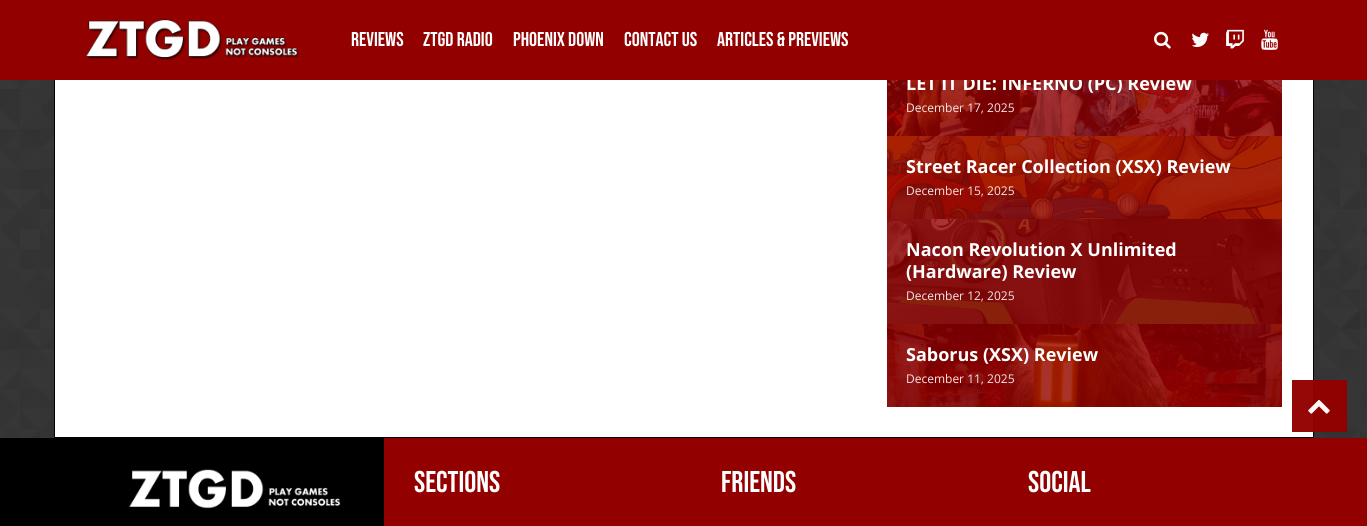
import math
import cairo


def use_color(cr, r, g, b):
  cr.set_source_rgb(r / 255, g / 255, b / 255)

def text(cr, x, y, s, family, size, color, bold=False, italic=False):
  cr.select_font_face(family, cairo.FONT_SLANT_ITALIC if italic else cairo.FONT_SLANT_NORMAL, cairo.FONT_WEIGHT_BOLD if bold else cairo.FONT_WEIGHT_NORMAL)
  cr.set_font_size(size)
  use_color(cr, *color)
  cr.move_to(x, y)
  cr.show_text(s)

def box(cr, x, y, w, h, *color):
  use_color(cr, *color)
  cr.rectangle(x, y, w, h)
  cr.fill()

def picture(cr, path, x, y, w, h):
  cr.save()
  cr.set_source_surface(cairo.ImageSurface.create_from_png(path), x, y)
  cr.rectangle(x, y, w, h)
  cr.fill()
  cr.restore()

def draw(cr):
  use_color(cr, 255, 255, 255)
  cr.paint()
  picture(cr, "img_01.png", 0, 80, 1367, 358)
  box(cr, 55, 80, 1258, 357, 255, 255, 255)
  cr.rectangle(54.5, -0.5, 1259, 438)
  use_color(cr, 0, 0, 0)
  cr.set_line_width(1)
  cr.stroke()
  picture(cr, "img_07.png", 887, 80, 395, 56)
  picture(cr, "img_08.png", 887, 136, 395, 83)
  picture(cr, "img_09.png", 887, 219, 395, 105)
  picture(cr, "img_10.png", 887, 324, 395, 83)
  gradient = cairo.LinearGradient(0, 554, 1367, 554)
  gradient.add_color_stop_rgba(0, 0, 0, 0, 1)
  gradient.add_color_stop_rgba(0.5, 0, 0, 0, 1)
  gradient.add_color_stop_rgba(0.51, 0.576, 0, 0, 1)
  gradient.add_color_stop_rgba(1, 0.576, 0, 0, 1)
  cr.set_source(gradient)
  cr.rectangle(0, 438, 1367, 88)
  cr.fill()
  picture(cr, "img_11.png", 129, 469, 212, 40)
  box(cr, 384, 438, 313, 88, 147, 0, 0)
  cr.set_source_rgba(0.576, 0, 0, 0.97)
  cr.rectangle(1292, 380, 55, 52)
  cr.fill()
  picture(cr, "img_12.png", 1308, 399, 22, 15)
  text(cr, 906, 90, "LET IT DIE: INFERNO (PC) Review", "Open Sans", 18, (255, 255, 255), bold=True)
  box(cr, 0, 0, 1367, 80, 147, 0, 0)
  text(cr, 717, 46, "ARTICLES & PREVIEWS", "Bebas Neue", 20, (255, 255, 255))
  text(cr, 624, 46, "CONTACT US", "Bebas Neue", 20, (255, 255, 255))
  text(cr, 513, 46, "PHOENIX DOWN", "Bebas Neue", 20, (255, 255, 255))
  text(cr, 423, 46, "ZTGD RADIO", "Bebas Neue", 20, (255, 255, 255))
  text(cr, 351, 46, "REVIEWS", "Bebas Neue", 20, (255, 255, 255))
  picture(cr, "img_06.png", 1261, 29, 17, 21)
  picture(cr, "img_05.png", 1226, 29, 18, 20)
  picture(cr, "img_04.png", 1191, 32, 18, 15)
  picture(cr, "img_03.png", 1154, 31, 17, 18)
  picture(cr, "img_02.png", 85, 19, 215, 42)
  text(cr, 906, 112, "December 17, 2025", "Open Sans", 12, (243, 231, 230))
  text(cr, 906, 173, "Street Racer Collection (XSX) Review", "Open Sans", 18, (255, 255, 255), bold=True)
  text(cr, 906, 195, "December 15, 2025", "Open Sans", 12, (243, 231, 230))
  text(cr, 906, 256, "Nacon Revolution X Unlimited", "Open Sans", 18, (255, 255, 255), bold=True)
  text(cr, 906, 278, "(Hardware) Review", "Open Sans", 18, (255, 255, 255), bold=True)
  text(cr, 906, 300, "December 12, 2025", "Open Sans", 12, (243, 231, 230))
  text(cr, 906, 361, "Saborus (XSX) Review", "Open Sans", 18, (255, 255, 255), bold=True)
  text(cr, 906, 383, "December 11, 2025", "Open Sans", 12, (243, 231, 230))
  text(cr, 414, 492, "SECTIONS", "Bebas Neue", 30, (255, 255, 255))
  text(cr, 721, 492, "FRIENDS", "Bebas Neue", 30, (255, 255, 255))
  text(cr, 1028, 492, "SOCIAL", "Bebas Neue", 30, (255, 255, 255))


surface = cairo.ImageSurface(cairo.FORMAT_RGB24, 1367, 526)
cr = cairo.Context(surface)
options = cairo.FontOptions()
options.set_hint_metrics(cairo.HINT_METRICS_OFF)
options.set_hint_style(cairo.HINT_STYLE_NONE)
cr.set_font_options(options)
cr.set_miter_limit(4)
draw(cr)
surface.write_to_png("out.png")
